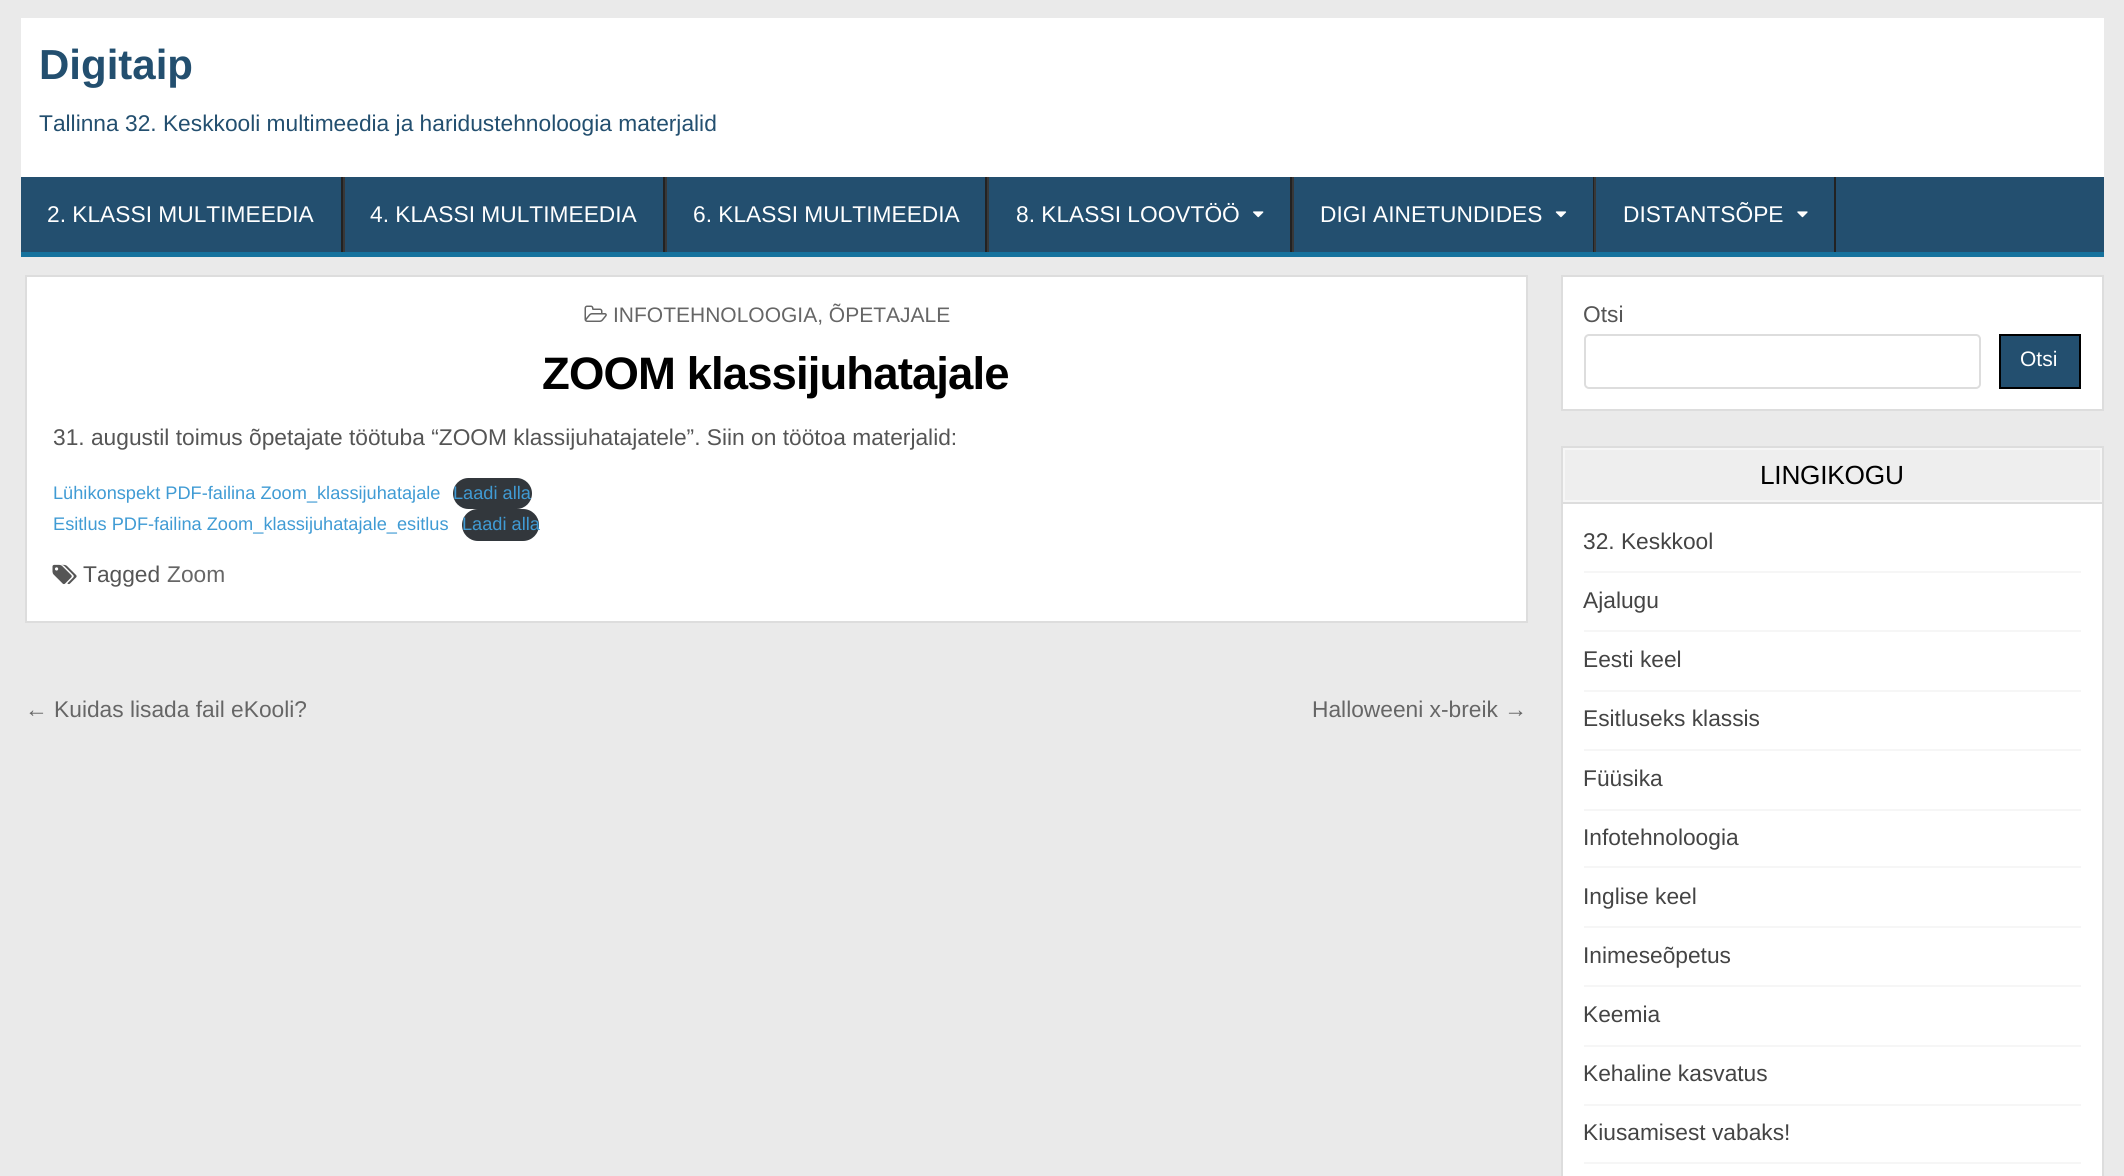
import math
import cairo


def use_color(cr, r, g, b):
  cr.set_source_rgb(r / 255, g / 255, b / 255)

def text(cr, x, y, s, family, size, color, bold=False, italic=False):
  cr.select_font_face(family, cairo.FONT_SLANT_ITALIC if italic else cairo.FONT_SLANT_NORMAL, cairo.FONT_WEIGHT_BOLD if bold else cairo.FONT_WEIGHT_NORMAL)
  cr.set_font_size(size)
  use_color(cr, *color)
  cr.move_to(x, y)
  cr.show_text(s)

def spaced_text(cr, x, y, s, letter, word):
  cr.move_to(x, y)
  for ch in s:
    cr.show_text(ch)
    cr.rel_move_to(letter + word * (ch == ' '), 0)

def box(cr, x, y, w, h, *color):
  use_color(cr, *color)
  cr.rectangle(x, y, w, h)
  cr.fill()

def round_rect(cr, x, y, w, h, r):
  cr.new_sub_path()
  for i, (u, v) in enumerate([(x + w - r, y + h - r), (x + r, y + h - r), (x + r, y + r), (x + w - r, y + r)]):
    cr.arc(u, v, r, i * math.pi / 2, (i + 1) * math.pi / 2)
  cr.close_path()

def picture(cr, path, x, y, w, h):
  cr.save()
  cr.set_source_surface(cairo.ImageSurface.create_from_png(path), x, y)
  cr.rectangle(x, y, w, h)
  cr.fill()
  cr.restore()

def draw(cr):
  use_color(cr, 234, 234, 234)
  cr.paint()
  box(cr, 21, 18, 2083, 159, 255, 255, 255)
  box(cr, 21, 177, 2083, 75, 35, 79, 111)
  box(cr, 21, 252, 2083, 5, 22, 114, 157)
  box(cr, 341, 177, 2, 75, 34, 34, 34)
  box(cr, 663, 177, 2, 75, 34, 34, 34)
  box(cr, 343, 177, 2, 75, 56, 56, 56)
  box(cr, 985, 177, 2, 75, 34, 34, 34)
  box(cr, 665, 177, 2, 75, 56, 56, 56)
  box(cr, 1290, 177, 2, 75, 34, 34, 34)
  box(cr, 987, 177, 2, 75, 56, 56, 56)
  picture(cr, "img_01.png", 1253, 211, 11, 7)
  box(cr, 1593, 177, 1, 75, 34, 34, 34)
  box(cr, 1292, 177, 2, 75, 56, 56, 56)
  picture(cr, "img_02.png", 1555, 211, 12, 7)
  box(cr, 1834, 177, 2, 75, 34, 34, 34)
  box(cr, 1594, 177, 2, 75, 56, 56, 56)
  picture(cr, "img_03.png", 1797, 211, 11, 7)
  use_color(cr, 255, 255, 255)
  cr.rectangle(26, 276, 1501, 346)
  cr.fill_preserve()
  use_color(cr, 221, 221, 221)
  cr.stroke()
  picture(cr, "img_04.png", 584, 305, 23, 17)
  use_color(cr, 50, 55, 60)
  round_rect(cr, 453, 478, 79, 31, 15.5)
  cr.fill()
  round_rect(cr, 462, 509, 77, 32, 16)
  cr.fill()
  picture(cr, "img_05.png", 52, 564, 25, 21)
  use_color(cr, 255, 255, 255)
  cr.rectangle(1562, 276, 541, 134)
  cr.fill_preserve()
  use_color(cr, 221, 221, 221)
  cr.stroke()
  round_rect(cr, 1585, 335, 395, 53, 4)
  cr.stroke()
  use_color(cr, 35, 79, 111)
  cr.rectangle(2000, 335, 80, 53)
  cr.fill_preserve()
  use_color(cr, 0, 0, 0)
  cr.stroke()
  box(cr, 1563, 504, 539, 672, 255, 255, 255)
  cr.rectangle(1562, 447, 541, 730)
  use_color(cr, 221, 221, 221)
  cr.stroke()
  box(cr, 1563, 502, 539, 2, 221, 221, 221)
  use_color(cr, 238, 238, 238)
  cr.rectangle(1564, 449, 537, 52)
  cr.fill_preserve()
  use_color(cr, 246, 246, 246)
  cr.stroke()
  box(cr, 1584, 571, 497, 2, 246, 246, 246)
  box(cr, 1584, 630, 497, 2, 246, 246, 246)
  box(cr, 1584, 690, 497, 2, 246, 246, 246)
  box(cr, 1584, 749, 497, 2, 246, 246, 246)
  box(cr, 1584, 809, 497, 2, 246, 246, 246)
  box(cr, 1584, 866, 497, 2, 246, 246, 246)
  box(cr, 1584, 926, 497, 2, 246, 246, 246)
  box(cr, 1584, 985, 497, 2, 246, 246, 246)
  box(cr, 1584, 1045, 497, 2, 246, 246, 246)
  box(cr, 1584, 1104, 497, 2, 246, 246, 246)
  box(cr, 1584, 1162, 497, 2, 246, 246, 246)
  text(cr, 39, 79, "Digitaip", "Liberation Sans", 42, (35, 79, 111), bold=True)
  text(cr, 39, 131, "Tallinna 32. Keskkooli multimeedia ja haridustehnoloogia materjalid", "Liberation Sans", 22.75, (35, 79, 111))
  text(cr, 47, 222, "2. KLASSI MULTIMEEDIA", "Liberation Sans", 22.75, (255, 255, 255))
  text(cr, 370, 222, "4. KLASSI MULTIMEEDIA", "Liberation Sans", 22.75, (255, 255, 255))
  text(cr, 693, 222, "6. KLASSI MULTIMEEDIA", "Liberation Sans", 22.75, (255, 255, 255))
  text(cr, 1016, 222, "8. KLASSI LOOVTÖÖ", "Liberation Sans", 22.75, (255, 255, 255))
  text(cr, 1320, 222, "DIGI AINETUNDIDES", "Liberation Sans", 22.75, (255, 255, 255))
  text(cr, 1623, 222, "DISTANTSÕPE", "Liberation Sans", 22.75, (255, 255, 255))
  text(cr, 613, 322, "INFOTEHNOLOOGIA, ÕPETAJALE", "Liberation Sans", 21, (102, 102, 102))
  cr.select_font_face("Liberation Sans", cairo.FONT_SLANT_NORMAL, cairo.FONT_WEIGHT_BOLD)
  cr.set_font_size(45.5)
  use_color(cr, 0, 0, 0)
  spaced_text(cr, 542, 389, "ZOOM klassijuhatajale", -0.9, 0)
  text(cr, 53, 445, "31. augustil toimus õpetajate töötuba “ZOOM klassijuhatajatele”. Siin on töötoa materjalid:", "Liberation Sans", 22.75, (85, 85, 85))
  text(cr, 53, 499, "Lühikonspekt PDF-failina Zoom_klassijuhatajale", "Liberation Sans", 18.2, (64, 155, 212))
  text(cr, 453, 499, "Laadi alla", "Liberation Sans", 18.2, (64, 155, 212))
  text(cr, 53, 530, "Esitlus PDF-failina Zoom_klassijuhatajale_esitlus", "Liberation Sans", 18.2, (64, 155, 212))
  text(cr, 462, 530, "Laadi alla", "Liberation Sans", 18.2, (64, 155, 212))
  text(cr, 83, 582, "Tagged", "Liberation Sans", 22.75, (85, 85, 85))
  text(cr, 167, 582, "Zoom", "Liberation Sans", 22.75, (102, 102, 102))
  text(cr, 25, 717, "← Kuidas lisada fail eKooli?", "Liberation Sans", 22.75, (102, 102, 102))
  text(cr, 1312, 717, "Halloweeni x-breik →", "Liberation Sans", 22.75, (102, 102, 102))
  text(cr, 1583, 322, "Otsi", "Liberation Sans", 22.75, (85, 85, 85))
  text(cr, 2020, 366, "Otsi", "Liberation Sans", 21, (255, 255, 255))
  cr.set_font_size(26.25)
  use_color(cr, 0, 0, 0)
  spaced_text(cr, 1760, 484, "LINGIKOGU", -0.25, 0)
  text(cr, 1583, 549, "32. Keskkool", "Liberation Sans", 22.75, (68, 68, 68))
  text(cr, 1583, 608, "Ajalugu", "Liberation Sans", 22.75, (68, 68, 68))
  text(cr, 1583, 667, "Eesti keel", "Liberation Sans", 22.75, (68, 68, 68))
  text(cr, 1583, 726, "Esitluseks klassis", "Liberation Sans", 22.75, (68, 68, 68))
  text(cr, 1583, 786, "Füüsika", "Liberation Sans", 22.75, (68, 68, 68))
  text(cr, 1583, 845, "Infotehnoloogia", "Liberation Sans", 22.75, (68, 68, 68))
  text(cr, 1583, 904, "Inglise keel", "Liberation Sans", 22.75, (68, 68, 68))
  text(cr, 1583, 963, "Inimeseõpetus", "Liberation Sans", 22.75, (68, 68, 68))
  text(cr, 1583, 1022, "Keemia", "Liberation Sans", 22.75, (68, 68, 68))
  text(cr, 1583, 1081, "Kehaline kasvatus", "Liberation Sans", 22.75, (68, 68, 68))
  text(cr, 1583, 1140, "Kiusamisest vabaks!", "Liberation Sans", 22.75, (68, 68, 68))


surface = cairo.ImageSurface(cairo.FORMAT_RGB24, 2124, 1176)
cr = cairo.Context(surface)
options = cairo.FontOptions()
options.set_hint_metrics(cairo.HINT_METRICS_OFF)
options.set_hint_style(cairo.HINT_STYLE_NONE)
cr.set_font_options(options)
cr.set_miter_limit(4)
draw(cr)
surface.write_to_png("out.png")
